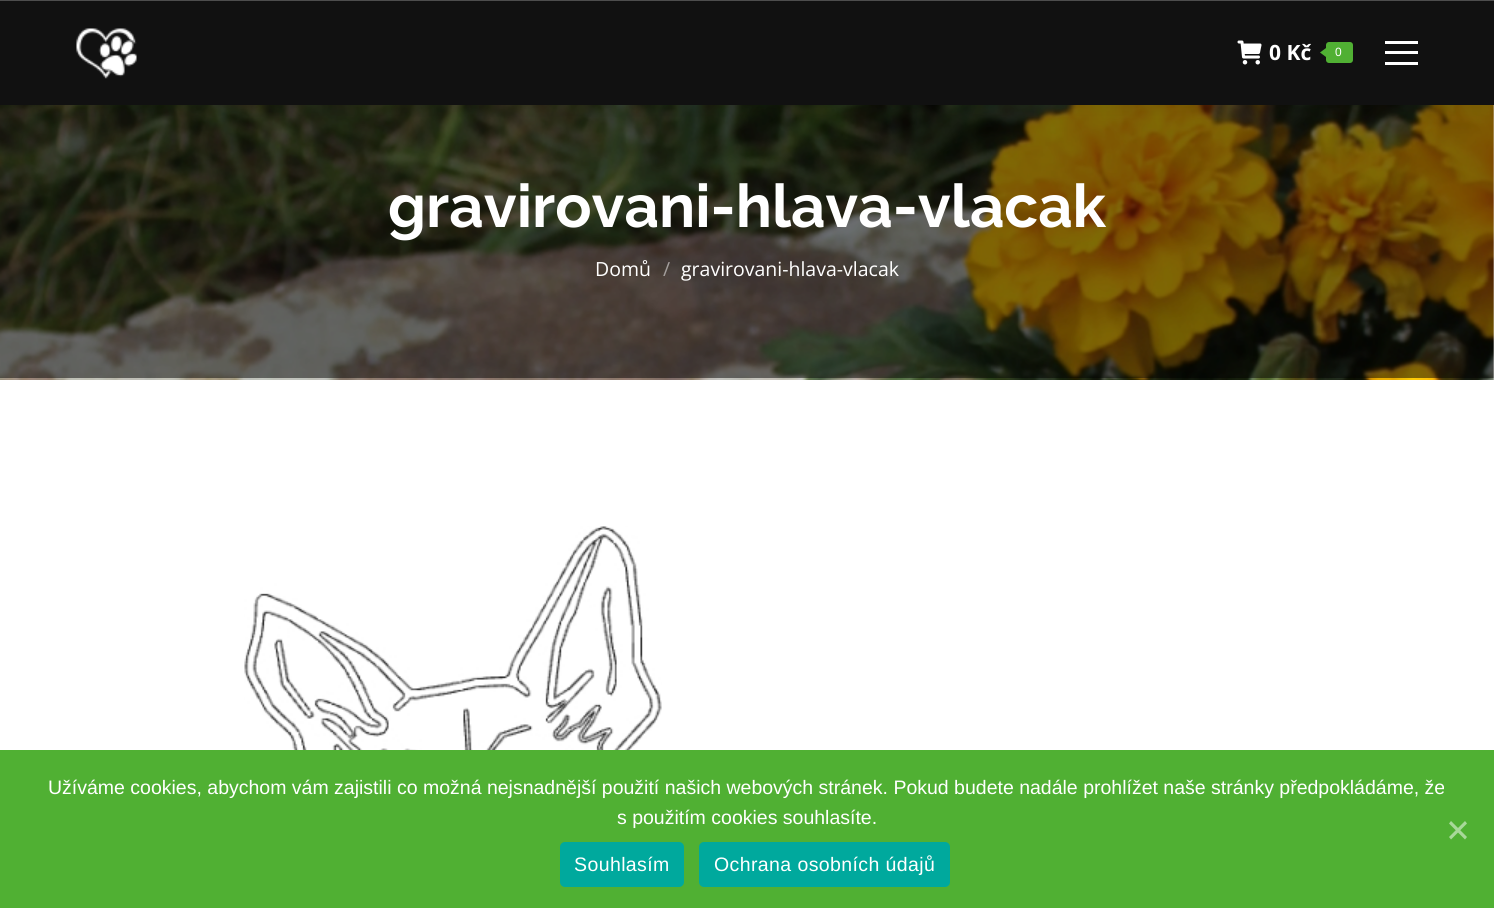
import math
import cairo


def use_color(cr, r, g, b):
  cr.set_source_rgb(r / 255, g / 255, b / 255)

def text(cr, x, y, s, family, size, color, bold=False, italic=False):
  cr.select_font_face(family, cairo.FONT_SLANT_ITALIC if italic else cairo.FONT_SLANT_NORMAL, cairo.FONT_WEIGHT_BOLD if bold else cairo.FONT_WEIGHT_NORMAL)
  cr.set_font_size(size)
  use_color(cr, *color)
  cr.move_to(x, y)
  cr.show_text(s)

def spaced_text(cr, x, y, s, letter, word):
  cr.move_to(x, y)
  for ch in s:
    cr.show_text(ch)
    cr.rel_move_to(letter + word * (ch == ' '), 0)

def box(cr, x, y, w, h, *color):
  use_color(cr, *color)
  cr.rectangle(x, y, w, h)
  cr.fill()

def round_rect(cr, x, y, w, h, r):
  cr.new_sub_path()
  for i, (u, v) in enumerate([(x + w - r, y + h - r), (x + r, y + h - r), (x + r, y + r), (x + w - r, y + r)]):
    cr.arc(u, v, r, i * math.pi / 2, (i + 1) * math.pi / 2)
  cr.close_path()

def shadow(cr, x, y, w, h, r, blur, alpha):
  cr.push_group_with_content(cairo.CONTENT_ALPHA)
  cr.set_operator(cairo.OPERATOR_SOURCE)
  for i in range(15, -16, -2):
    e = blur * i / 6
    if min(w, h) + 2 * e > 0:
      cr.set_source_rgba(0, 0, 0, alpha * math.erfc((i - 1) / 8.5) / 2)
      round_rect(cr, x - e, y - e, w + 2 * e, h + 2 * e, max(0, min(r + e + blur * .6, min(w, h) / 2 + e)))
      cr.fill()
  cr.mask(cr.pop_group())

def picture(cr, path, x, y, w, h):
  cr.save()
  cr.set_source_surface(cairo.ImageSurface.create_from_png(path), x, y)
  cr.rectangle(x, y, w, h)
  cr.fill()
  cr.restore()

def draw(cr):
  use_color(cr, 255, 255, 255)
  cr.paint()
  picture(cr, "img_03.png", 0, 105, 1494, 275)
  use_color(cr, 0, 0, 0)
  shadow(cr, -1, -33, 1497, 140, 0, 11, 0.07)
  box(cr, 0, 1, 1494, 104, 17, 17, 17)
  box(cr, 0, 0, 1494, 1, 77, 77, 77)
  picture(cr, "img_01.png", 76, 28, 61, 51)
  picture(cr, "img_02.png", 1237, 40, 25, 25)
  use_color(cr, 80, 176, 51)
  round_rect(cr, 1326, 42, 27, 21, 3)
  cr.fill()
  cr.new_path()
  cr.move_to(1326, 48)
  cr.line_to(1326, 57)
  cr.line_to(1320, 52.5)
  cr.close_path()
  cr.fill()
  box(cr, 1385, 41, 33, 3, 255, 255, 255)
  box(cr, 1385, 51, 33, 3, 255, 255, 255)
  box(cr, 1385, 62, 33, 3, 255, 255, 255)
  picture(cr, "img_04.png", 244, 526, 418, 224)
  box(cr, 0, 750, 1494, 158, 80, 176, 51)
  use_color(cr, 168, 216, 153)
  cr.new_path()
  cr.move_to(1465, 821)
  cr.line_to(1467, 823.5)
  cr.line_to(1451, 839.5)
  cr.line_to(1449, 837)
  cr.close_path()
  cr.fill()
  cr.new_path()
  cr.move_to(1449, 823.5)
  cr.line_to(1451, 821)
  cr.line_to(1467, 837)
  cr.line_to(1465, 839.5)
  cr.close_path()
  cr.fill()
  use_color(cr, 0, 169, 157)
  round_rect(cr, 560, 842, 124, 45, 5)
  cr.fill()
  round_rect(cr, 699, 842, 251, 45, 5)
  cr.fill()
  text(cr, 1269, 60, "0 Kč", "Open Sans", 21, (255, 255, 255), bold=True)
  text(cr, 1335, 56, "0", "Liberation Sans", 12, (255, 255, 255))
  text(cr, 388, 227, "gravirovani-hlava-vlacak", "Raleway", 60, (255, 255, 255), bold=True)
  text(cr, 595, 276, "Domů", "Open Sans", 19.5, (255, 255, 255))
  text(cr, 663, 276, "/", "Open Sans", 19.5, (163, 158, 156))
  text(cr, 681, 276, "gravirovani-hlava-vlacak", "Open Sans", 19.5, (255, 255, 255))
  text(cr, 48, 794, "Užíváme cookies, abychom vám zajistili co možná nejsnadnější použití našich webových stránek. Pokud budete nadále prohlížet naše stránky předpokládáme, že", "Liberation Sans", 19.5, (255, 255, 255))
  text(cr, 617, 824, "s použitím cookies souhlasíte.", "Liberation Sans", 19.5, (255, 255, 255))
  spaced_text(cr, 574, 871, "Souhlasím", 0.4, 0)
  spaced_text(cr, 714, 871, "Ochrana osobních údajů", 0.4, 0)


surface = cairo.ImageSurface(cairo.FORMAT_RGB24, 1494, 908)
cr = cairo.Context(surface)
options = cairo.FontOptions()
options.set_hint_metrics(cairo.HINT_METRICS_OFF)
options.set_hint_style(cairo.HINT_STYLE_NONE)
cr.set_font_options(options)
cr.set_miter_limit(4)
draw(cr)
surface.write_to_png("out.png")
